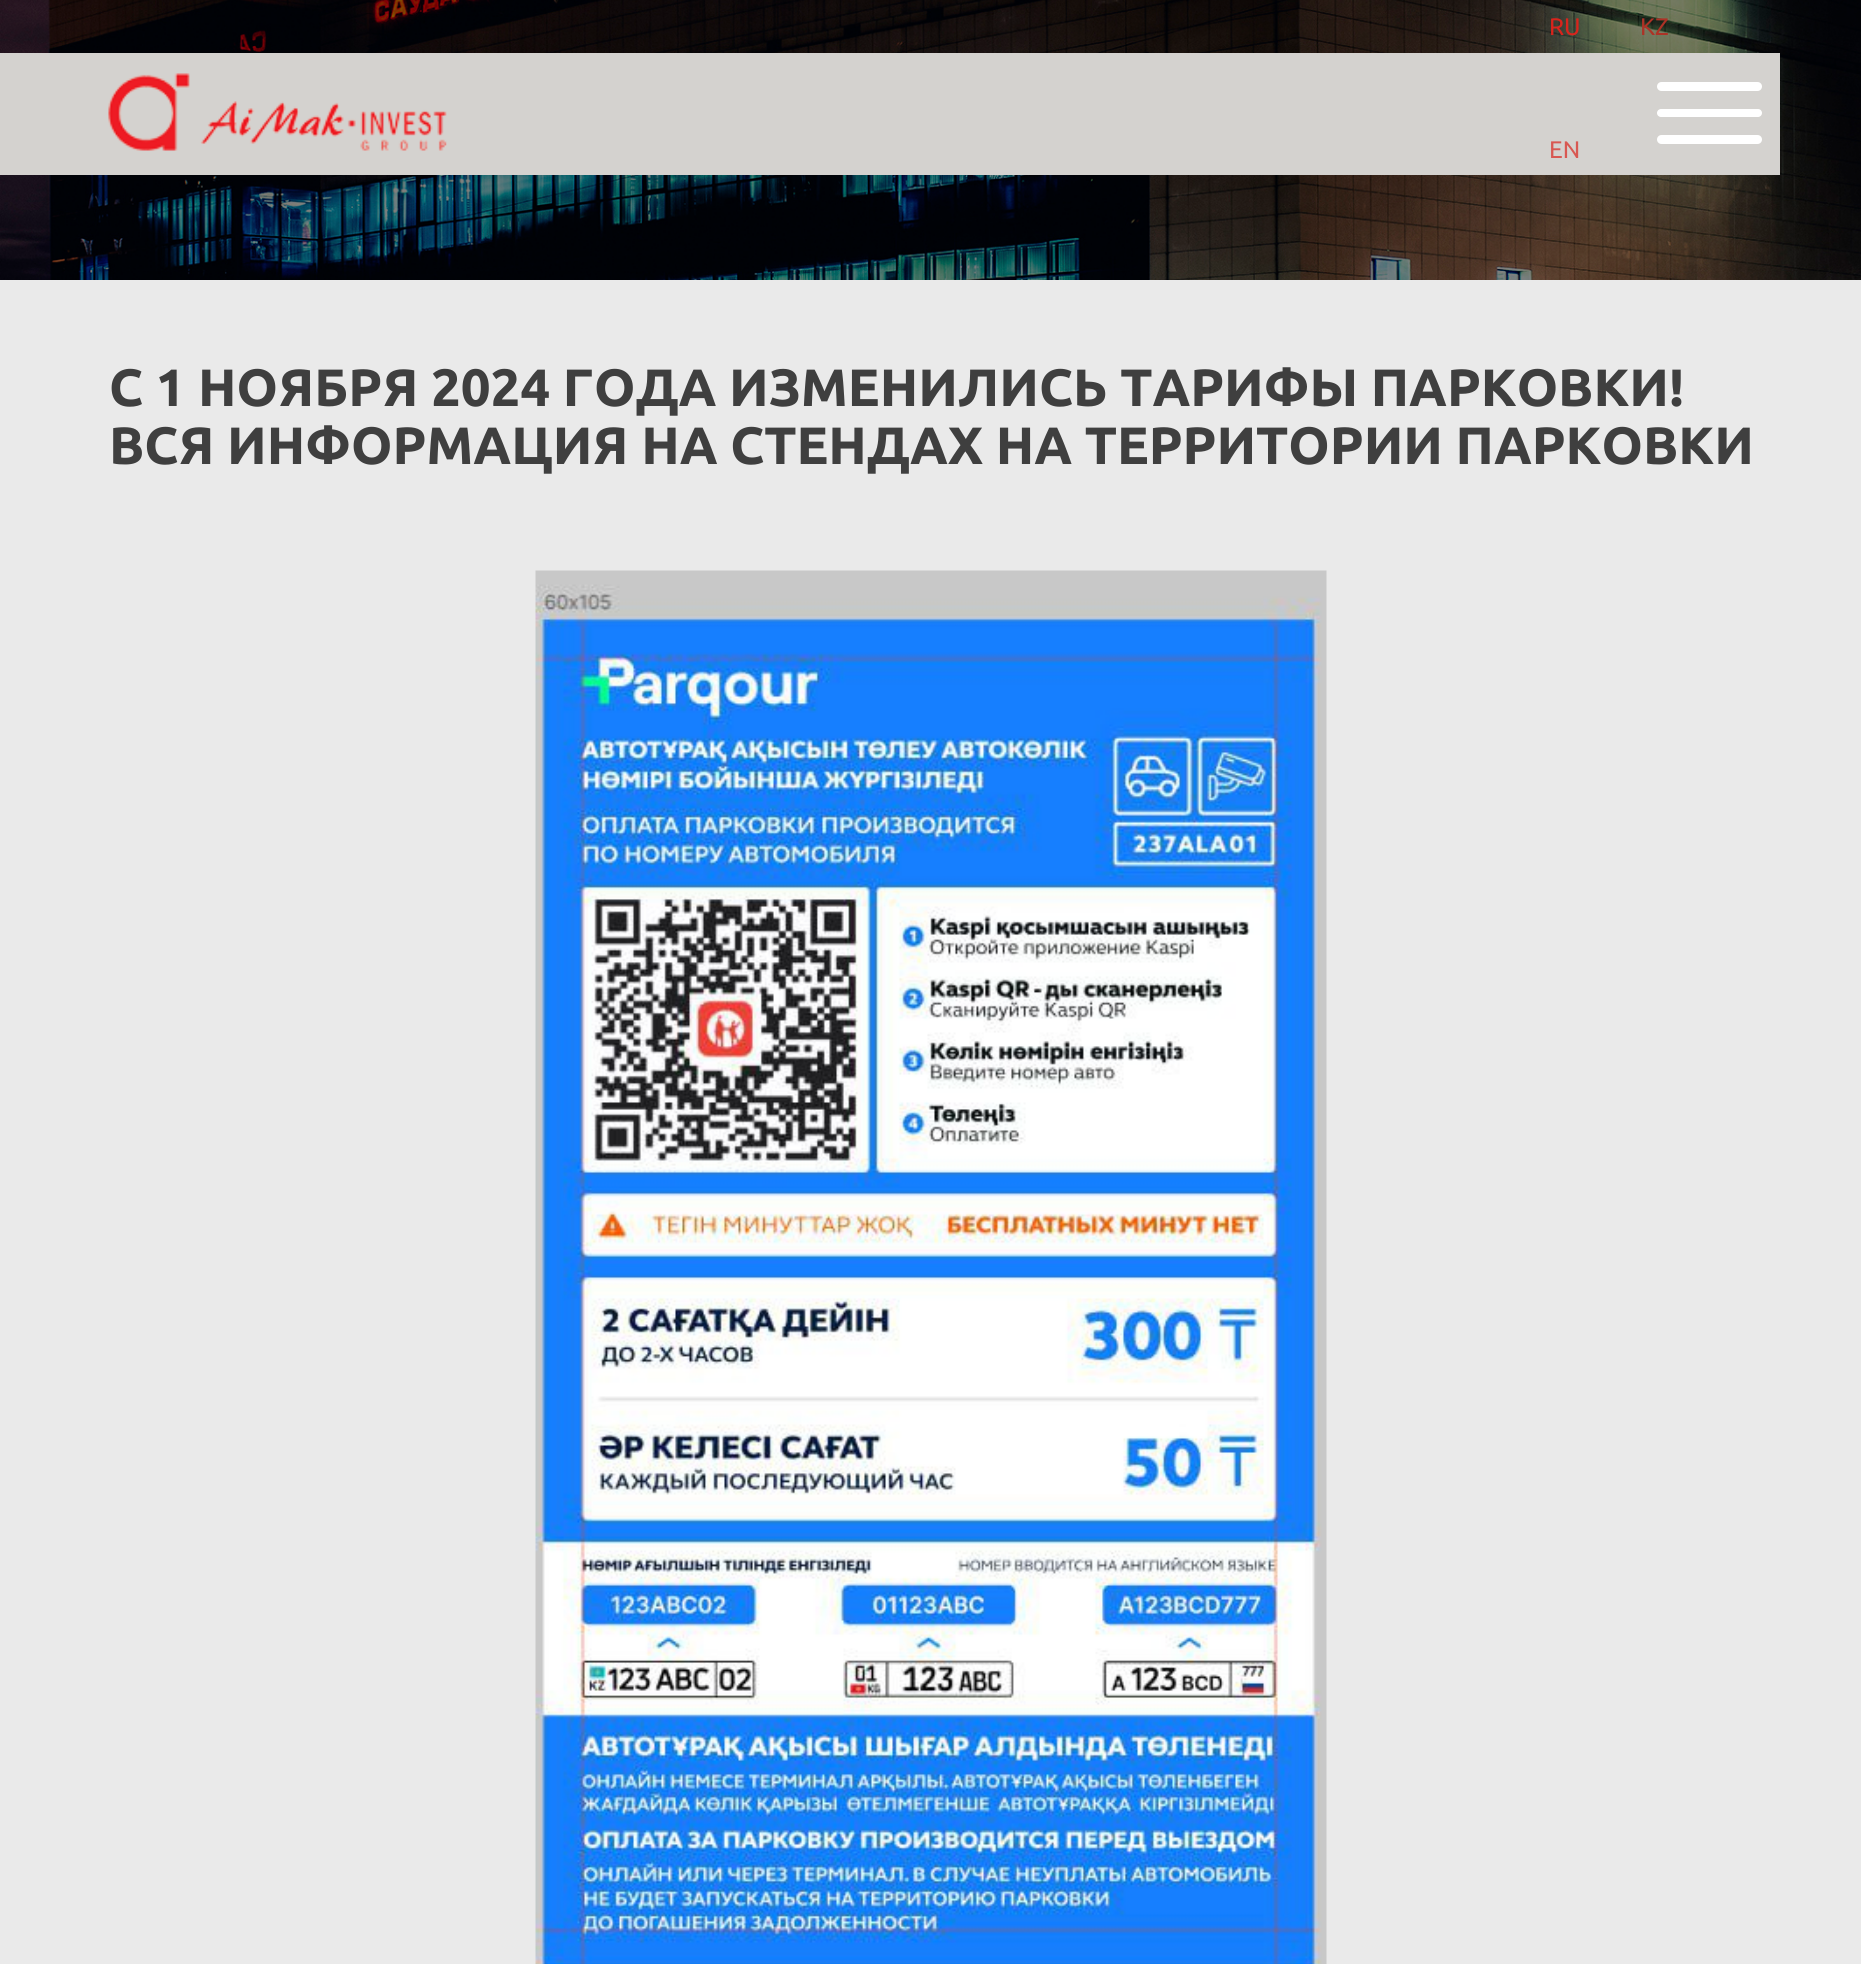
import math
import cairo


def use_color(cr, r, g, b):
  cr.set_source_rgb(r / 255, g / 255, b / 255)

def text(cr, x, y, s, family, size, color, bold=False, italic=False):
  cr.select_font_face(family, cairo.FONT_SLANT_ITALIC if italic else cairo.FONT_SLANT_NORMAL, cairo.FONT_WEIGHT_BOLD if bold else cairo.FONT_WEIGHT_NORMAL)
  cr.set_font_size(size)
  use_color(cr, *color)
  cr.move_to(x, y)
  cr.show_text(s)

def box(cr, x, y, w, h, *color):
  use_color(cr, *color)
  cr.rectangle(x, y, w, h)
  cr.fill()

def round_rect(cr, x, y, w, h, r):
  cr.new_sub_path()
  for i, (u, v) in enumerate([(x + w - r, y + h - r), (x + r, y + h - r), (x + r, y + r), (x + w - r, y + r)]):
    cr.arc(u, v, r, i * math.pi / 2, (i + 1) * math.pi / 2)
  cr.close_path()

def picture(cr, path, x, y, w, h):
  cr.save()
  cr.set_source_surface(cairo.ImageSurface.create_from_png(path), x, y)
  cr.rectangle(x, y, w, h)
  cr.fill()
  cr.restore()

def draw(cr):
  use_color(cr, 234, 234, 234)
  cr.paint()
  picture(cr, "img_01.png", 0, 0, 1861, 280)
  box(cr, 0, 53, 1780, 122, 212, 210, 207)
  picture(cr, "img_02.png", 108, 73, 339, 78)
  use_color(cr, 255, 255, 255)
  round_rect(cr, 1657, 82, 105, 9, 4.5)
  cr.fill()
  round_rect(cr, 1657, 109, 105, 8, 4)
  cr.fill()
  round_rect(cr, 1657, 135, 105, 9, 4.5)
  cr.fill()
  picture(cr, "img_03.png", 535, 570, 792, 1394)
  text(cr, 1549, 35, "RU", "Ubuntu", 24, (217, 36, 28))
  text(cr, 1640, 35, "KZ", "Ubuntu", 24, (173, 50, 38))
  text(cr, 1549, 158, "EN", "Ubuntu", 24, (216, 88, 82))
  text(cr, 109, 406, "С 1 НОЯБРЯ 2024 ГОДА ИЗМЕНИЛИСЬ ТАРИФЫ ПАРКОВКИ!", "Ubuntu", 52.5, (63, 63, 63), bold=True)
  text(cr, 109, 464, "ВСЯ ИНФОРМАЦИЯ НА СТЕНДАХ НА ТЕРРИТОРИИ ПАРКОВКИ", "Ubuntu", 52.5, (63, 63, 63), bold=True)


surface = cairo.ImageSurface(cairo.FORMAT_RGB24, 1861, 1964)
cr = cairo.Context(surface)
options = cairo.FontOptions()
options.set_hint_metrics(cairo.HINT_METRICS_OFF)
options.set_hint_style(cairo.HINT_STYLE_NONE)
cr.set_font_options(options)
cr.set_miter_limit(4)
draw(cr)
surface.write_to_png("out.png")
